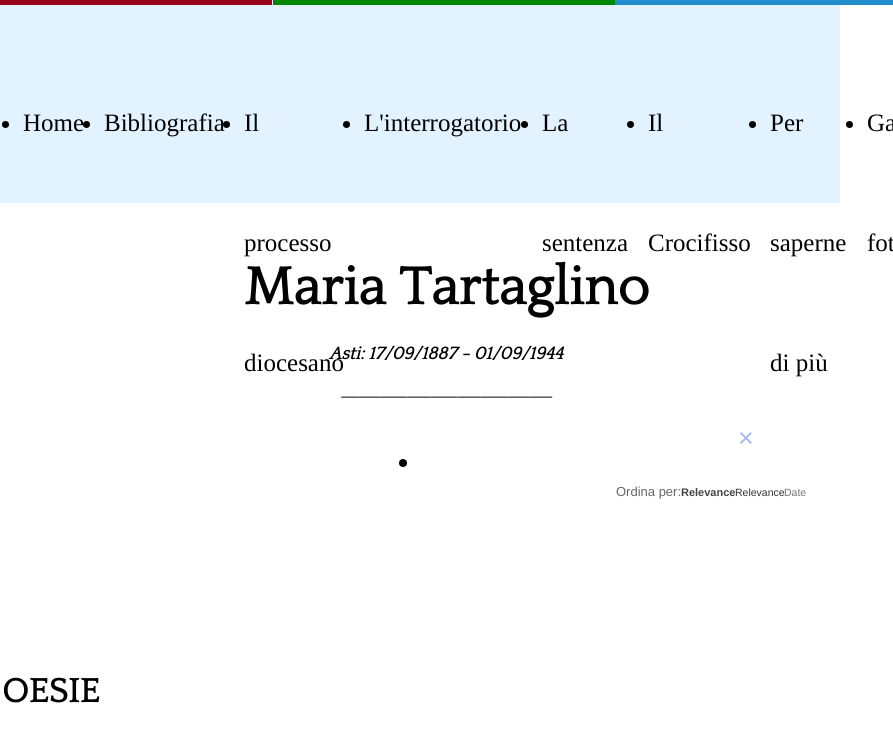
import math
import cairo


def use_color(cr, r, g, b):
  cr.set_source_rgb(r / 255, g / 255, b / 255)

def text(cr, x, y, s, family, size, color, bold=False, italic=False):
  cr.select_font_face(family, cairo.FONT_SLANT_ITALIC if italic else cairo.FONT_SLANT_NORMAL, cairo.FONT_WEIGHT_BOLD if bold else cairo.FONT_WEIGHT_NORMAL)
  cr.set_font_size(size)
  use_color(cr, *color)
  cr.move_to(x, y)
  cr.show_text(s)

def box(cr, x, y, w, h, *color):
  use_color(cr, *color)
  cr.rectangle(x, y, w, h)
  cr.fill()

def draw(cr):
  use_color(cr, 255, 255, 255)
  cr.paint()
  box(cr, 0, 0, 840, 203, 227, 242, 255)
  box(cr, 0, 0, 272, 5, 150, 0, 24)
  box(cr, 273, 0, 342, 5, 0, 136, 0)
  box(cr, 615, 0, 278, 5, 35, 142, 207)
  use_color(cr, 0, 0, 0)
  cr.arc(5.5, 124.5, 3.5, 0, 2 * math.pi)
  cr.fill()
  cr.arc(86.5, 124.5, 3.5, 0, 2 * math.pi)
  cr.fill()
  cr.arc(226.5, 124.5, 3.5, 0, 2 * math.pi)
  cr.fill()
  cr.arc(346.5, 124.5, 3.5, 0, 2 * math.pi)
  cr.fill()
  cr.arc(524.5, 124.5, 3.5, 0, 2 * math.pi)
  cr.fill()
  cr.arc(630.5, 124.5, 3.5, 0, 2 * math.pi)
  cr.fill()
  cr.arc(752.5, 124.5, 3.5, 0, 2 * math.pi)
  cr.fill()
  cr.arc(849.5, 124.5, 3.5, 0, 2 * math.pi)
  cr.fill()
  cr.arc(403, 463, 4, 0, 2 * math.pi)
  cr.fill()
  text(cr, 23, 131, "Home", "Liberation Serif", 25, (0, 0, 0))
  text(cr, 104, 131, "Bibliografia", "Liberation Serif", 25, (0, 0, 0))
  text(cr, 244, 131, "Il", "Liberation Serif", 25, (0, 0, 0))
  text(cr, 244, 251, "processo", "Liberation Serif", 25, (0, 0, 0))
  text(cr, 244, 371, "diocesano", "Liberation Serif", 25, (0, 0, 0))
  text(cr, 364, 131, "L'interrogatorio", "Liberation Serif", 25, (0, 0, 0))
  text(cr, 542, 131, "La", "Liberation Serif", 25, (0, 0, 0))
  text(cr, 542, 251, "sentenza", "Liberation Serif", 25, (0, 0, 0))
  text(cr, 648, 131, "Il", "Liberation Serif", 25, (0, 0, 0))
  text(cr, 648, 251, "Crocifisso", "Liberation Serif", 25, (0, 0, 0))
  text(cr, 770, 131, "Per", "Liberation Serif", 25, (0, 0, 0))
  text(cr, 770, 251, "saperne", "Liberation Serif", 25, (0, 0, 0))
  text(cr, 770, 371, "di più", "Liberation Serif", 25, (0, 0, 0))
  text(cr, 867, 131, "Ga", "Liberation Serif", 25, (0, 0, 0))
  text(cr, 867, 251, "fot", "Liberation Serif", 25, (0, 0, 0))
  text(cr, 244, 304, "Maria Tartaglino", "Quattrocento", 55, (0, 0, 0), bold=True)
  text(cr, 329, 359, "Asti: 17/09/1887 - 01/09/1944", "Quattrocento", 18, (0, 0, 0), bold=True, italic=True)
  text(cr, 341, 397, "______________________________________", "Quattrocento", 12, (0, 0, 0), bold=True)
  text(cr, 738, 447, "×", "Liberation Sans", 27, (161, 185, 237))
  text(cr, 616, 496, "Ordina per:", "Liberation Sans", 13, (103, 103, 103))
  text(cr, 681, 496, "Relevance", "Liberation Sans", 11, (68, 68, 68), bold=True)
  text(cr, 735, 496, "Relevance", "Liberation Sans", 10.5, (51, 51, 51))
  text(cr, 784, 496, "Date", "Liberation Sans", 10.5, (119, 119, 119))
  text(cr, 2, 702, "OESIE", "Quattrocento", 35, (0, 0, 0), bold=True)


surface = cairo.ImageSurface(cairo.FORMAT_RGB24, 893, 743)
cr = cairo.Context(surface)
options = cairo.FontOptions()
options.set_hint_metrics(cairo.HINT_METRICS_OFF)
options.set_hint_style(cairo.HINT_STYLE_NONE)
cr.set_font_options(options)
cr.set_miter_limit(4)
draw(cr)
surface.write_to_png("out.png")
